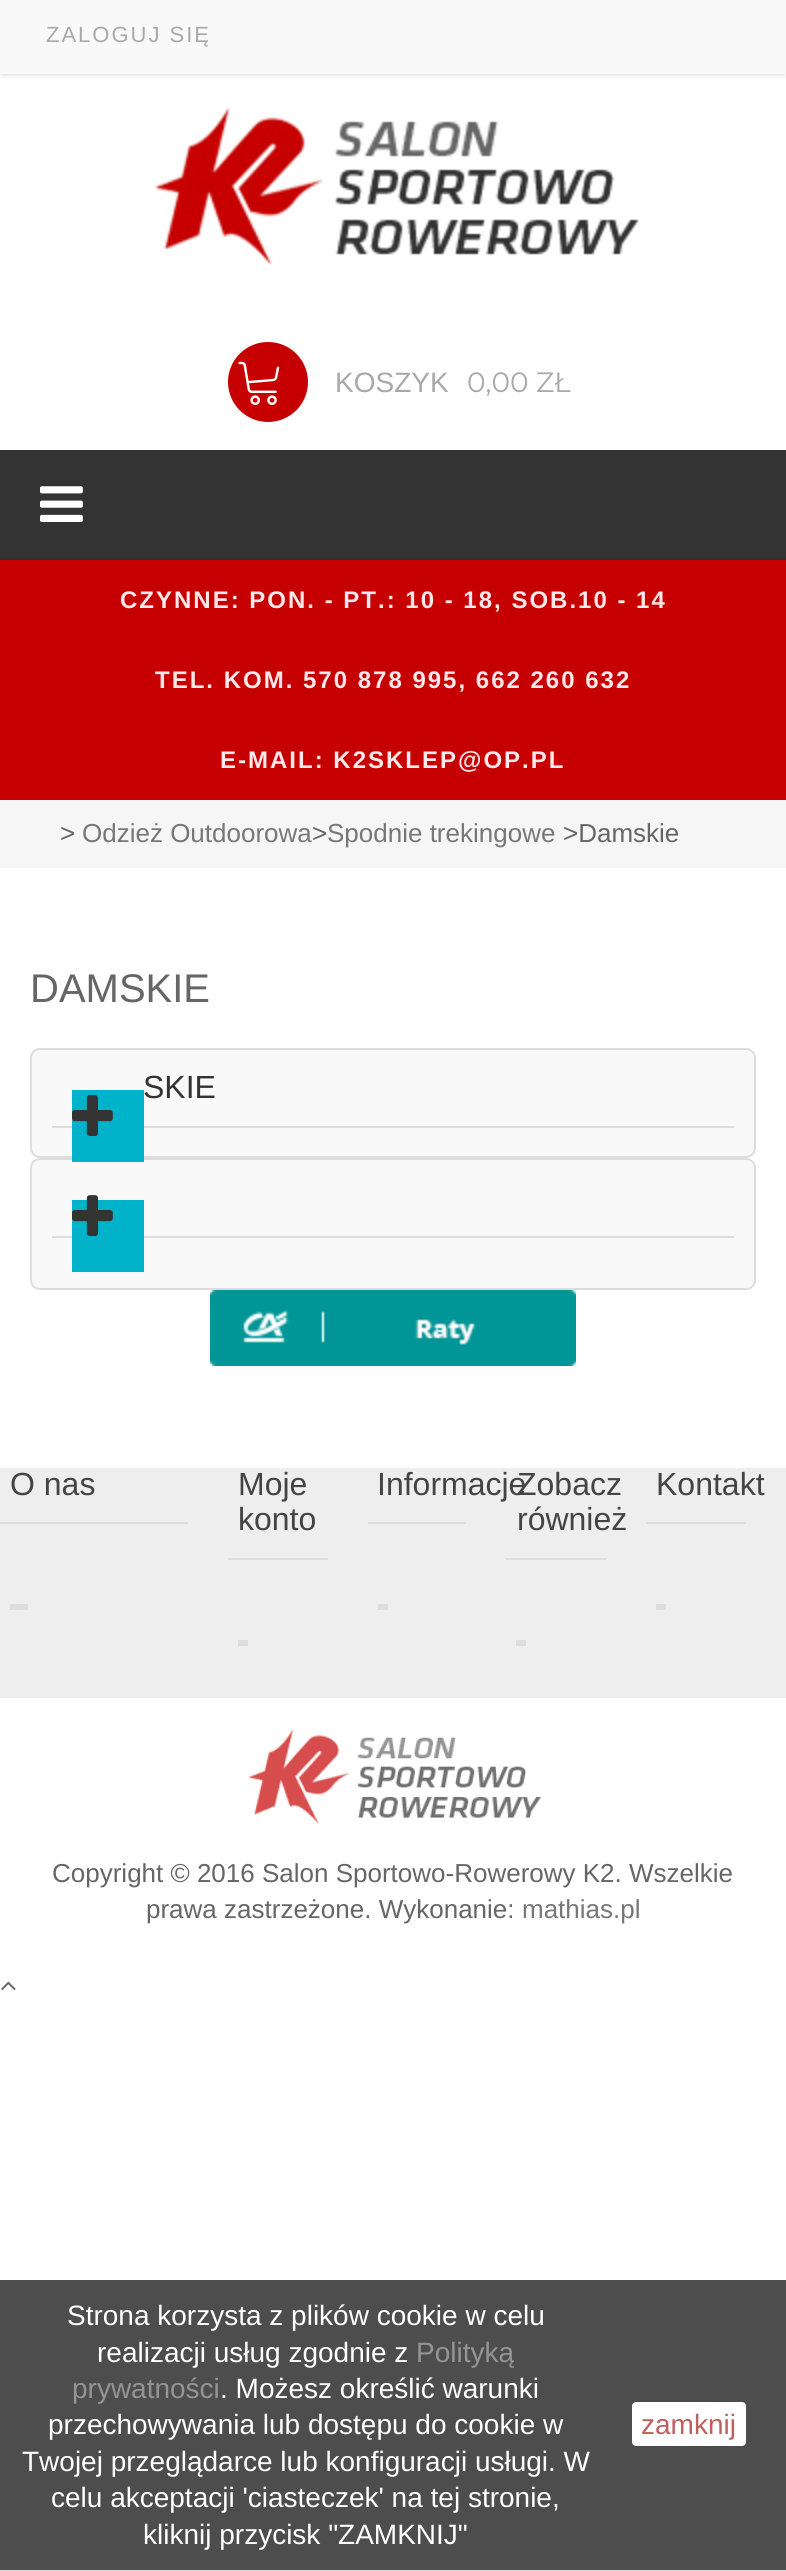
import math
import cairo


def use_color(cr, r, g, b):
  cr.set_source_rgb(r / 255, g / 255, b / 255)

def text(cr, x, y, s, family, size, color, bold=False, italic=False):
  cr.select_font_face(family, cairo.FONT_SLANT_ITALIC if italic else cairo.FONT_SLANT_NORMAL, cairo.FONT_WEIGHT_BOLD if bold else cairo.FONT_WEIGHT_NORMAL)
  cr.set_font_size(size)
  use_color(cr, *color)
  cr.move_to(x, y)
  cr.show_text(s)

def spaced_text(cr, x, y, s, letter, word):
  cr.move_to(x, y)
  for ch in s:
    cr.show_text(ch)
    cr.rel_move_to(letter + word * (ch == ' '), 0)

def box(cr, x, y, w, h, *color):
  use_color(cr, *color)
  cr.rectangle(x, y, w, h)
  cr.fill()

def round_rect(cr, x, y, w, h, r):
  cr.new_sub_path()
  for i, (u, v) in enumerate([(x + w - r, y + h - r), (x + r, y + h - r), (x + r, y + r), (x + w - r, y + r)]):
    cr.arc(u, v, r, i * math.pi / 2, (i + 1) * math.pi / 2)
  cr.close_path()

def shadow(cr, x, y, w, h, r, blur, alpha):
  cr.push_group_with_content(cairo.CONTENT_ALPHA)
  cr.set_operator(cairo.OPERATOR_SOURCE)
  for i in range(15, -16, -2):
    e = blur * i / 6
    if min(w, h) + 2 * e > 0:
      cr.set_source_rgba(0, 0, 0, alpha * math.erfc((i - 1) / 8.5) / 2)
      round_rect(cr, x - e, y - e, w + 2 * e, h + 2 * e, max(0, min(r + e + blur * .6, min(w, h) / 2 + e)))
      cr.fill()
  cr.mask(cr.pop_group())

def picture(cr, path, x, y, w, h):
  cr.save()
  cr.set_source_surface(cairo.ImageSurface.create_from_png(path), x, y)
  cr.rectangle(x, y, w, h)
  cr.fill()
  cr.restore()

def draw(cr):
  use_color(cr, 255, 255, 255)
  cr.paint()
  picture(cr, "img_01.png", 1, 1981, 15, 9)
  use_color(cr, 0, 0, 0)
  shadow(cr, 2, 4, 782, 70, 0, 3, 0.2)
  box(cr, 0, 0, 786, 74, 249, 249, 249)
  picture(cr, "img_02.png", 155, 107, 484, 158)
  use_color(cr, 198, 0, 0)
  cr.arc(268, 382, 40, 0, 2 * math.pi)
  cr.fill()
  picture(cr, "img_03.png", 238, 361, 42, 44)
  box(cr, 0, 450, 786, 110, 51, 51, 51)
  picture(cr, "img_04.png", 40, 486, 43, 36)
  use_color(cr, 0, 0, 0)
  shadow(cr, -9, 560, 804, 4, 0, 3, 0.2)
  box(cr, 0, 560, 786, 240, 198, 0, 0)
  box(cr, 0, 800, 786, 68, 246, 246, 246)
  use_color(cr, 249, 249, 249)
  round_rect(cr, 31, 1049, 724, 108, 9)
  cr.fill_preserve()
  use_color(cr, 221, 221, 221)
  cr.stroke()
  box(cr, 52, 1126, 682, 2, 221, 221, 221)
  use_color(cr, 249, 249, 249)
  round_rect(cr, 31, 1159, 724, 130, 9)
  cr.fill_preserve()
  use_color(cr, 221, 221, 221)
  cr.stroke()
  box(cr, 72, 1090, 72, 72, 0, 178, 202)
  picture(cr, "img_05.png", 72, 1095, 41, 41)
  box(cr, 52, 1236, 682, 2, 221, 221, 221)
  box(cr, 72, 1200, 72, 72, 0, 178, 202)
  picture(cr, "img_06.png", 72, 1195, 41, 41)
  picture(cr, "img_07.png", 210, 1290, 366, 76)
  box(cr, 0, 1468, 786, 230, 238, 238, 238)
  box(cr, 0, 1522, 188, 2, 221, 221, 221)
  box(cr, 10, 1604, 18, 6, 221, 221, 221)
  box(cr, 228, 1558, 100, 2, 221, 221, 221)
  box(cr, 238, 1640, 10, 6, 221, 221, 221)
  box(cr, 368, 1522, 98, 2, 221, 221, 221)
  box(cr, 378, 1604, 10, 6, 221, 221, 221)
  box(cr, 506, 1558, 100, 2, 221, 221, 221)
  box(cr, 516, 1640, 10, 6, 221, 221, 221)
  box(cr, 646, 1522, 100, 2, 221, 221, 221)
  box(cr, 656, 1604, 10, 6, 221, 221, 221)
  box(cr, 0, 2280, 786, 290, 77, 77, 77)
  box(cr, 0, 2570, 786, 1, 219, 219, 219)
  use_color(cr, 255, 255, 255)
  round_rect(cr, 632, 2402, 114, 44, 4)
  cr.fill()
  picture(cr, "img_08.png", 248, 1729, 293, 95)
  cr.select_font_face("Liberation Sans")
  cr.set_font_size(22)
  use_color(cr, 169, 169, 169)
  spaced_text(cr, 46, 42, "ZALOGUJ SIĘ", 2, 0)
  text(cr, 335, 392, "KOSZYK", "Liberation Sans", 28, (169, 169, 169))
  text(cr, 467, 392, "0,00 ZŁ", "Montserrat", 28, (169, 169, 169))
  cr.select_font_face("Liberation Sans", cairo.FONT_SLANT_NORMAL, cairo.FONT_WEIGHT_BOLD)
  cr.set_font_size(24)
  use_color(cr, 255, 232, 233)
  spaced_text(cr, 120, 608, "CZYNNE: PON. - PT.: 10 - 18, SOB.10 - 14", 2, 0)
  spaced_text(cr, 155, 688, "TEL. KOM. 570 878 995, 662 260 632", 2, 0)
  spaced_text(cr, 220, 768, "E-MAIL: K2SKLEP@OP.PL", 2, 0)
  text(cr, 60, 842, ">", "Liberation Sans", 26, (102, 102, 102))
  text(cr, 82, 842, "Odzież Outdoorowa", "Liberation Sans", 26, (119, 119, 119))
  text(cr, 312, 842, ">", "Liberation Sans", 26, (102, 102, 102))
  text(cr, 327, 842, "Spodnie trekingowe", "Liberation Sans", 26, (119, 119, 119))
  text(cr, 563, 842, ">Damskie", "Liberation Sans", 26, (102, 102, 102))
  text(cr, 30, 1002, "DAMSKIE", "Liberation Sans", 40, (102, 102, 102))
  text(cr, 143, 1098, "SKIE", "Liberation Sans", 32, (51, 51, 51))
  text(cr, 10, 1495, "O nas", "Liberation Sans", 32, (68, 68, 68))
  text(cr, 238, 1495, "Moje", "Liberation Sans", 32, (68, 68, 68))
  text(cr, 238, 1530, "konto", "Liberation Sans", 32, (68, 68, 68))
  text(cr, 377, 1495, "Informacje", "Liberation Sans", 32, (68, 68, 68))
  text(cr, 517, 1495, "Zobacz", "Liberation Sans", 32, (68, 68, 68))
  text(cr, 517, 1530, "również", "Liberation Sans", 32, (68, 68, 68))
  text(cr, 656, 1495, "Kontakt", "Liberation Sans", 32, (68, 68, 68))
  text(cr, 67, 2325, "Strona korzysta z plików cookie w celu", "Liberation Sans", 28, (255, 255, 255))
  text(cr, 97, 2362, "realizacji usług zgodnie z", "Liberation Sans", 28, (255, 255, 255))
  text(cr, 416, 2362, "Polityką", "Liberation Sans", 28, (148, 148, 148))
  text(cr, 72, 2398, "prywatności", "Liberation Sans", 28, (148, 148, 148))
  text(cr, 220, 2398, ". Możesz określić warunki", "Liberation Sans", 28, (255, 255, 255))
  text(cr, 48, 2434, "przechowywania lub dostępu do cookie w", "Liberation Sans", 28, (255, 255, 255))
  text(cr, 22, 2471, "Twojej przeglądarce lub konfiguracji usługi. W", "Liberation Sans", 28, (255, 255, 255))
  text(cr, 51, 2507, "celu akceptacji 'ciasteczek' na tej stronie,", "Liberation Sans", 28, (255, 255, 255))
  text(cr, 143, 2544, "kliknij przycisk \"ZAMKNIJ\"", "Liberation Sans", 28, (255, 255, 255))
  text(cr, 641, 2434, "zamknij", "Liberation Sans", 28, (191, 95, 95))
  text(cr, 52, 1882, "Copyright © 2016 Salon Sportowo-Rowerowy K2. Wszelkie", "Liberation Sans", 26, (102, 102, 102))
  text(cr, 146, 1918, "prawa zastrzeżone. Wykonanie:", "Liberation Sans", 26, (102, 102, 102))
  text(cr, 522, 1918, "mathias.pl", "Liberation Sans", 26, (119, 119, 119))


surface = cairo.ImageSurface(cairo.FORMAT_RGB24, 786, 2571)
cr = cairo.Context(surface)
options = cairo.FontOptions()
options.set_hint_metrics(cairo.HINT_METRICS_OFF)
options.set_hint_style(cairo.HINT_STYLE_NONE)
cr.set_font_options(options)
cr.set_miter_limit(4)
draw(cr)
surface.write_to_png("out.png")
